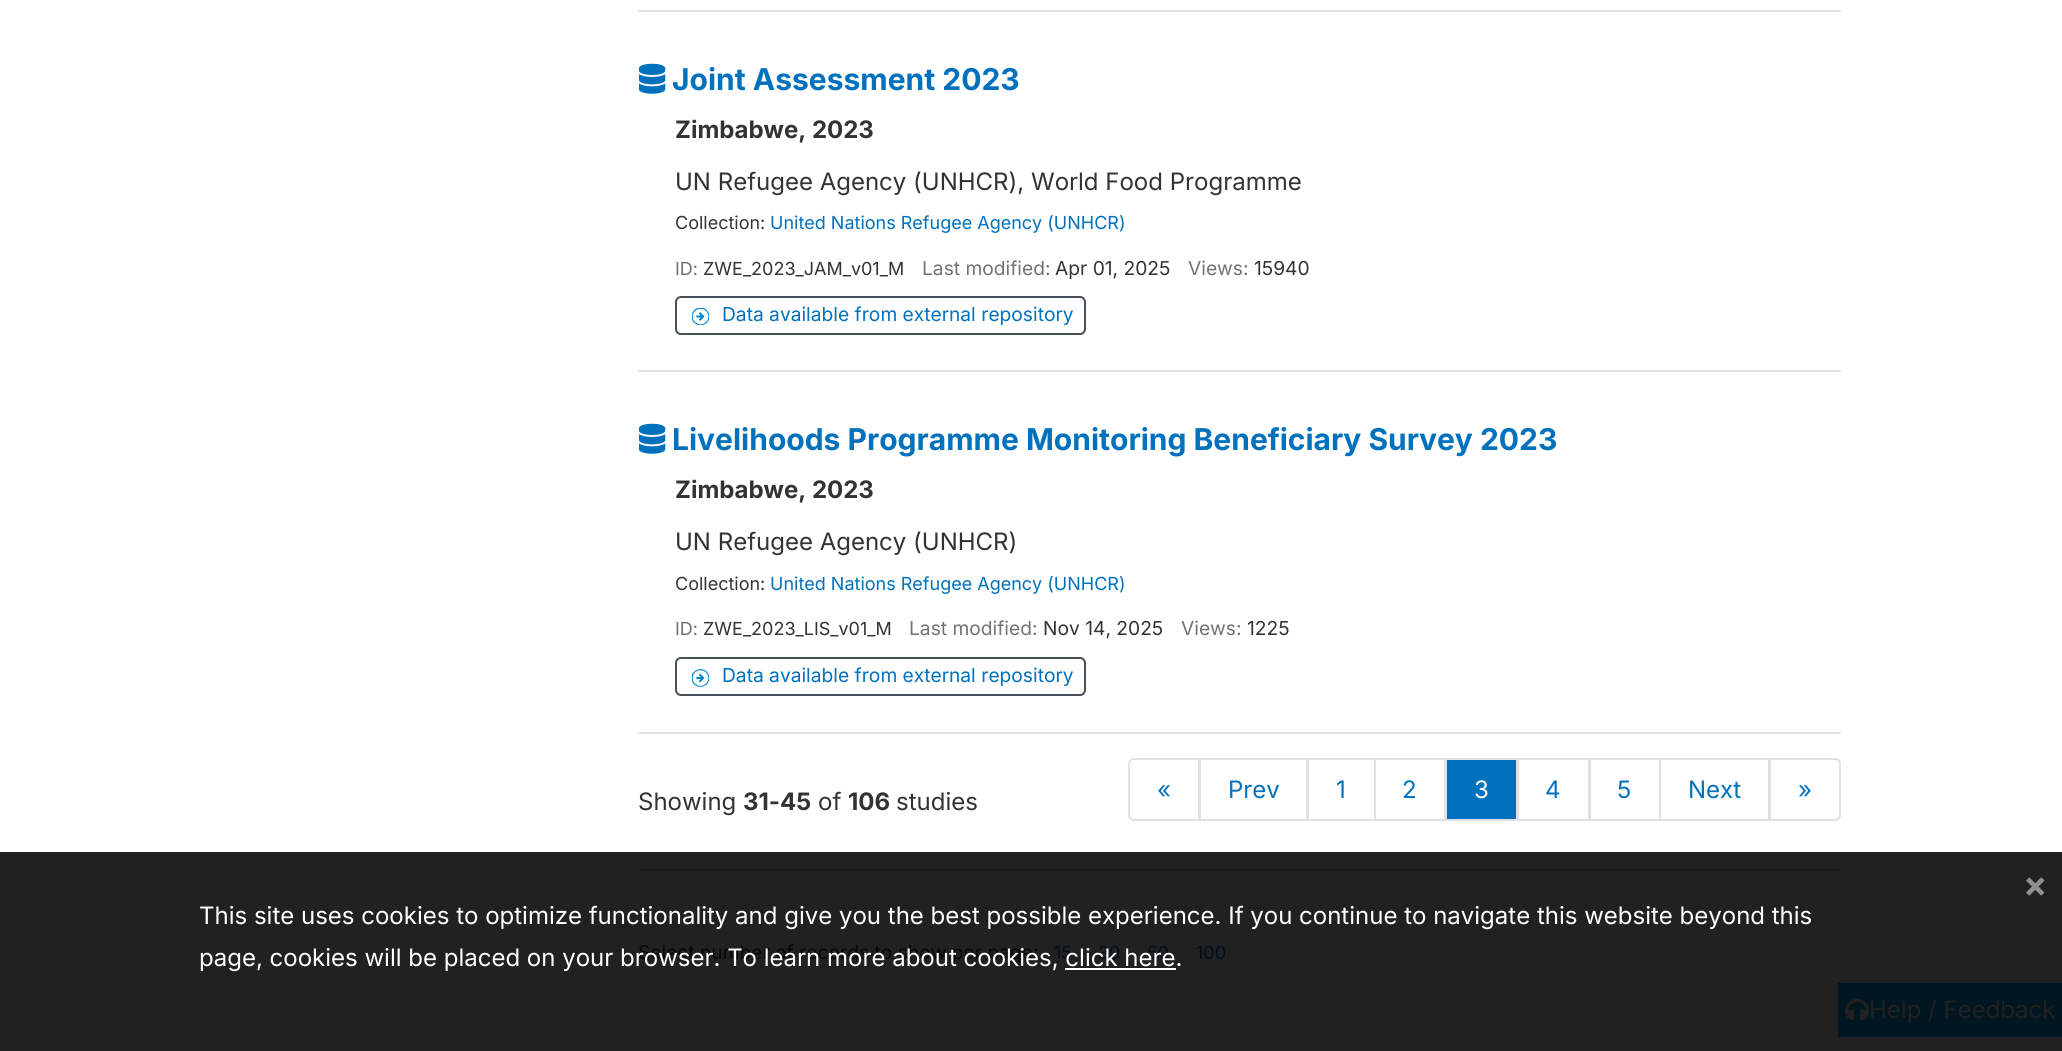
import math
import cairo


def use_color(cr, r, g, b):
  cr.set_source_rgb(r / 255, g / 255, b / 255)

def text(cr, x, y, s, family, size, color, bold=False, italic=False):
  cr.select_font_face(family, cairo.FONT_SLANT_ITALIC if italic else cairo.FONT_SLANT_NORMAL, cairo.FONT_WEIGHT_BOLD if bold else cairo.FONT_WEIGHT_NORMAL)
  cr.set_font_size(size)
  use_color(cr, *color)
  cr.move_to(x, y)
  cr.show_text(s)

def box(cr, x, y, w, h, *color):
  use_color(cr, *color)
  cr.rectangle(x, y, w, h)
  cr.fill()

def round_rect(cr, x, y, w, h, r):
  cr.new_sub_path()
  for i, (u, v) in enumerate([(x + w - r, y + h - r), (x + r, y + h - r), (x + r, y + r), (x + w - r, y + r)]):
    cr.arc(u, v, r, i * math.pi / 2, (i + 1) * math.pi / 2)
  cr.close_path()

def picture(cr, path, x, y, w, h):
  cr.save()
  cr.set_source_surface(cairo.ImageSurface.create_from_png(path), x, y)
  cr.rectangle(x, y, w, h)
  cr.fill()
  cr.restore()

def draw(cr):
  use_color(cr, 255, 255, 255)
  cr.paint()
  box(cr, 0, 852, 2062, 199, 33, 33, 33)
  use_color(cr, 222, 226, 230)
  cr.new_path()
  cr.move_to(1842, 12)
  cr.line_to(638, 12)
  cr.line_to(639, 10)
  cr.line_to(1840, 10)
  cr.close_path()
  cr.fill()
  cr.new_path()
  cr.move_to(1842, 372)
  cr.line_to(638, 372)
  cr.line_to(639, 370)
  cr.line_to(1840, 370)
  cr.close_path()
  cr.fill()
  picture(cr, "img_01.png", 639, 63, 27, 31)
  round_rect(cr, 676, 297, 409, 37, 5)
  use_color(cr, 73, 80, 87)
  cr.stroke()
  picture(cr, "img_02.png", 692, 308, 18, 18)
  use_color(cr, 222, 226, 230)
  cr.new_path()
  cr.move_to(1842, 734)
  cr.line_to(638, 734)
  cr.line_to(639, 732)
  cr.line_to(1840, 732)
  cr.close_path()
  cr.fill()
  picture(cr, "img_01.png", 639, 423, 27, 31)
  round_rect(cr, 676, 658, 409, 37, 5)
  use_color(cr, 73, 80, 87)
  cr.stroke()
  picture(cr, "img_03.png", 692, 669, 18, 18)
  box(cr, 638, 869, 1204, 2, 27, 27, 27)
  cr.new_path()
  cr.move_to(1134, 759)
  cr.line_to(1199, 759)
  cr.line_to(1199, 820)
  cr.line_to(1134, 820)
  cr.curve_to(1131, 820, 1129, 818, 1129, 815)
  cr.line_to(1129, 764)
  cr.curve_to(1129, 761, 1131, 759, 1134, 759)
  cr.close_path()
  use_color(cr, 222, 226, 230)
  cr.stroke()
  cr.rectangle(1200, 759, 107, 61)
  cr.stroke()
  cr.rectangle(1308, 759, 67, 61)
  cr.stroke()
  cr.rectangle(1375, 759, 70, 61)
  cr.stroke()
  use_color(cr, 0, 113, 188)
  cr.rectangle(1446, 759, 71, 61)
  cr.fill_preserve()
  use_color(cr, 222, 226, 230)
  cr.stroke()
  cr.rectangle(1518, 759, 71, 61)
  cr.stroke()
  cr.rectangle(1590, 759, 70, 61)
  cr.stroke()
  cr.rectangle(1660, 759, 109, 61)
  cr.stroke()
  use_color(cr, 255, 255, 255)
  cr.new_path()
  cr.move_to(1770, 759)
  cr.line_to(1835, 759)
  cr.curve_to(1838, 759, 1840, 761, 1840, 764)
  cr.line_to(1840, 815)
  cr.curve_to(1840, 818, 1838, 820, 1835, 820)
  cr.line_to(1770, 820)
  cr.close_path()
  cr.fill_preserve()
  use_color(cr, 222, 226, 230)
  cr.stroke()
  box(cr, 1065, 968, 111, 2, 255, 255, 255)
  box(cr, 1838, 983, 224, 54, 0, 22, 32)
  picture(cr, "img_04.png", 1845, 999, 24, 21)
  text(cr, 672, 90, "Joint Assessment 2023", "Inter", 30, (0, 113, 189), bold=True)
  text(cr, 675, 138, "Zimbabwe, 2023", "Inter", 24, (51, 51, 51), bold=True)
  text(cr, 675, 190, "UN Refugee Agency (UNHCR), World Food Programme", "Inter", 24, (51, 51, 51))
  text(cr, 675, 229, "Collection:", "Inter", 18, (51, 51, 51))
  text(cr, 770, 229, "United Nations Refugee Agency (UNHCR)", "Inter", 18, (0, 113, 189))
  text(cr, 675, 275, "ID:", "Inter", 18, (115, 115, 115))
  text(cr, 703, 275, "ZWE_2023_JAM_v01_M", "Inter", 18, (51, 51, 51))
  text(cr, 922, 275, "Last modified:", "Inter", 19.2, (115, 115, 115))
  text(cr, 1055, 275, "Apr 01, 2025", "Inter", 19.2, (51, 51, 51))
  text(cr, 1188, 275, "Views:", "Inter", 19.2, (115, 115, 115))
  text(cr, 1254, 275, "15940", "Inter", 19.2, (51, 51, 51))
  text(cr, 722, 321, "Data available from external repository", "Inter", 19.2, (0, 113, 189))
  text(cr, 672, 450, "Livelihoods Programme Monitoring Beneficiary Survey 2023", "Inter", 30, (0, 113, 189), bold=True)
  text(cr, 675, 498, "Zimbabwe, 2023", "Inter", 24, (51, 51, 51), bold=True)
  text(cr, 675, 550, "UN Refugee Agency (UNHCR)", "Inter", 24, (51, 51, 51))
  text(cr, 675, 590, "Collection:", "Inter", 18, (51, 51, 51))
  text(cr, 770, 590, "United Nations Refugee Agency (UNHCR)", "Inter", 18, (0, 113, 189))
  text(cr, 675, 635, "ID:", "Inter", 18, (115, 115, 115))
  text(cr, 703, 635, "ZWE_2023_LIS_v01_M", "Inter", 18, (51, 51, 51))
  text(cr, 909, 635, "Last modified:", "Inter", 19.2, (115, 115, 115))
  text(cr, 1043, 635, "Nov 14, 2025", "Inter", 19.2, (51, 51, 51))
  text(cr, 1181, 635, "Views:", "Inter", 19.2, (115, 115, 115))
  text(cr, 1247, 635, "1225", "Inter", 19.2, (51, 51, 51))
  text(cr, 722, 682, "Data available from external repository", "Inter", 19.2, (0, 113, 189))
  text(cr, 638, 810, "Showing", "Inter", 24, (51, 51, 51))
  text(cr, 743, 810, "31-45", "Inter", 24, (51, 51, 51), bold=True)
  text(cr, 818, 810, "of", "Inter", 24, (51, 51, 51))
  text(cr, 848, 810, "106", "Inter", 24, (51, 51, 51), bold=True)
  text(cr, 896, 810, "studies", "Inter", 24, (51, 51, 51))
  text(cr, 1157, 798, "«", "Inter", 24, (0, 113, 189))
  text(cr, 1228, 798, "Prev", "Inter", 24, (0, 113, 189))
  text(cr, 1336, 798, "1", "Inter", 24, (0, 113, 189))
  text(cr, 1402, 798, "2", "Inter", 24, (0, 113, 189))
  text(cr, 1474, 798, "3", "Inter", 24, (255, 255, 255))
  text(cr, 1545, 798, "4", "Inter", 24, (0, 113, 189))
  text(cr, 1617, 798, "5", "Inter", 24, (0, 113, 189))
  text(cr, 1688, 798, "Next", "Inter", 24, (0, 113, 189))
  text(cr, 1798, 798, "»", "Inter", 24, (0, 113, 189))
  text(cr, 638, 959, "Select number of records to show per page:", "Inter", 19.2, (7, 7, 7))
  text(cr, 1054, 959, "15", "Inter", 18, (0, 15, 25))
  text(cr, 1098, 959, "30", "Inter", 18, (0, 15, 25))
  text(cr, 1147, 959, "50", "Inter", 18, (0, 15, 25))
  text(cr, 1196, 959, "100", "Inter", 18, (0, 15, 25))
  text(cr, 2023, 897, "×", "Inter", 36, (144, 144, 144), bold=True)
  text(cr, 199, 924, "This site uses cookies to optimize functionality and give you the best possible experience. If you continue to navigate this website beyond this", "Inter", 24, (255, 255, 255))
  text(cr, 199, 966, "page, cookies will be placed on your browser. To learn more about cookies, click here.", "Inter", 24, (255, 255, 255))
  text(cr, 1869, 1018, "Help / Feedback", "Inter", 24, (33, 33, 33))


surface = cairo.ImageSurface(cairo.FORMAT_RGB24, 2062, 1051)
cr = cairo.Context(surface)
options = cairo.FontOptions()
options.set_hint_metrics(cairo.HINT_METRICS_OFF)
options.set_hint_style(cairo.HINT_STYLE_NONE)
cr.set_font_options(options)
cr.set_miter_limit(4)
draw(cr)
surface.write_to_png("out.png")
